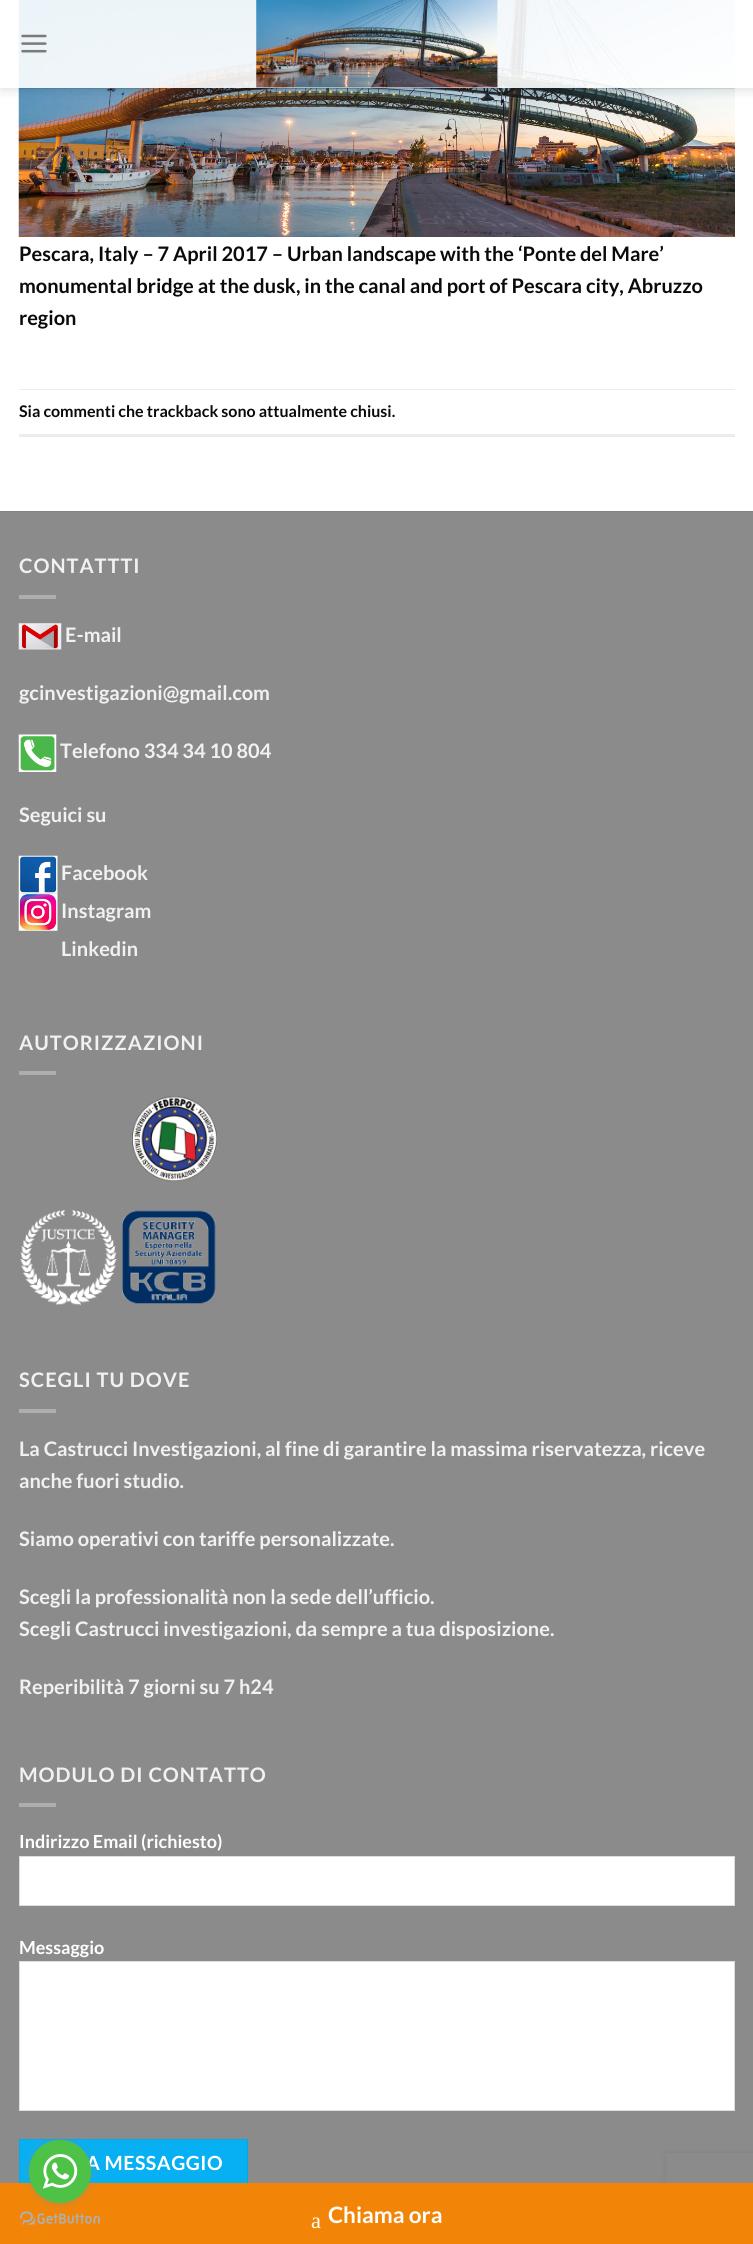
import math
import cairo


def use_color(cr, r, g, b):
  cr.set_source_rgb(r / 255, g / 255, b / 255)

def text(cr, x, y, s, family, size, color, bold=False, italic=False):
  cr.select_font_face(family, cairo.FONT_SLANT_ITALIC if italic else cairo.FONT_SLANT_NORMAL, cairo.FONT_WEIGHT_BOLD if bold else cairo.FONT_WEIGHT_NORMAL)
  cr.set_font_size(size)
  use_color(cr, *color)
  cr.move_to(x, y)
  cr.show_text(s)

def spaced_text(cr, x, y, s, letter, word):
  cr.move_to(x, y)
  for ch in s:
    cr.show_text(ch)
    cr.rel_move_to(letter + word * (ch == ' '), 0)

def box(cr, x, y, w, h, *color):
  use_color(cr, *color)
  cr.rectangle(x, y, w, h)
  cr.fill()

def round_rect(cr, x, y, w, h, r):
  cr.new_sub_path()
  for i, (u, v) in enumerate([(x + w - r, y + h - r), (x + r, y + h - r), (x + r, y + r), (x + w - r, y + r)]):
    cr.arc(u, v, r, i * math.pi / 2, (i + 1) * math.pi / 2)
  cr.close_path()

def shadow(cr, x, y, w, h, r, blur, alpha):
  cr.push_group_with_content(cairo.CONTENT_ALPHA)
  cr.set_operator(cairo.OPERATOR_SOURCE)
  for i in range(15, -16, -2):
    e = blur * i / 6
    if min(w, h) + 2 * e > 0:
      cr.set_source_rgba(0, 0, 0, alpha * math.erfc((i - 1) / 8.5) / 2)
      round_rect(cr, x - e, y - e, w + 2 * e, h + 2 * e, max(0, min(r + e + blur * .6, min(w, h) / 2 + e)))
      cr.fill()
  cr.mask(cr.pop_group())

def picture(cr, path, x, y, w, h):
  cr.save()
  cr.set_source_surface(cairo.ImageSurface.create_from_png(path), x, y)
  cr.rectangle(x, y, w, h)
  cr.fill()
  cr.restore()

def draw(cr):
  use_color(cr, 255, 255, 255)
  cr.paint()
  picture(cr, "img_03.png", 18, 0, 717, 237)
  cr.save()
  cr.set_fill_rule(cairo.FILL_RULE_EVEN_ODD)
  cr.new_path()
  cr.move_to(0, 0)
  cr.line_to(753, 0)
  cr.line_to(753, 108)
  cr.line_to(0, 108)
  cr.close_path()
  cr.move_to(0, 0)
  cr.line_to(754, 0)
  cr.line_to(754, 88)
  cr.line_to(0, 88)
  cr.close_path()
  cr.clip()
  use_color(cr, 0, 0, 0)
  shadow(cr, 1, 1, 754, 88, 0, 6, 0.15)
  cr.restore()
  cr.set_source_rgba(1, 1, 1, 0.9)
  cr.rectangle(0, 0, 753, 88)
  cr.fill()
  picture(cr, "img_01.png", 21, 34, 26, 19)
  picture(cr, "img_02.png", 256, 0, 242, 88)
  cr.set_source_rgba(0.039, 0.039, 0.039, 0.1)
  cr.rectangle(19, 88, 716, 1)
  cr.fill()
  box(cr, 19, 389, 716, 1, 236, 236, 236)
  box(cr, 19, 434, 716, 3, 236, 236, 236)
  box(cr, 0, 512, 753, 1671, 139, 139, 140)
  box(cr, 0, 511, 753, 1, 132, 132, 133)
  box(cr, 19, 595, 37, 4, 174, 174, 175)
  picture(cr, "img_04.png", 18, 623, 44, 27)
  picture(cr, "img_05.png", 18, 734, 39, 38)
  picture(cr, "img_06.png", 18, 855, 40, 39)
  picture(cr, "img_07.png", 18, 893, 40, 38)
  box(cr, 19, 1071, 37, 4, 174, 174, 175)
  picture(cr, "img_08.png", 131, 1096, 86, 86)
  picture(cr, "img_09.png", 20, 1210, 97, 96)
  picture(cr, "img_10.png", 122, 1210, 94, 94)
  box(cr, 19, 1409, 37, 4, 174, 174, 175)
  box(cr, 19, 1803, 37, 4, 174, 174, 175)
  use_color(cr, 255, 255, 255)
  cr.rectangle(19.5, 1856.5, 715, 49)
  cr.fill_preserve()
  use_color(cr, 221, 221, 221)
  cr.set_line_width(1)
  cr.stroke()
  use_color(cr, 255, 255, 255)
  cr.rectangle(19.5, 1961.5, 715, 149)
  cr.fill_preserve()
  use_color(cr, 221, 221, 221)
  cr.stroke()
  box(cr, 20, 2140, 227, 43, 7, 176, 242)
  cr.rectangle(19.5, 2139.5, 228, 48)
  use_color(cr, 7, 167, 230)
  cr.stroke()
  cr.save()
  cr.set_fill_rule(cairo.FILL_RULE_EVEN_ODD)
  cr.new_path()
  cr.move_to(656, 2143)
  cr.line_to(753, 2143)
  cr.line_to(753, 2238)
  cr.line_to(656, 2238)
  cr.close_path()
  cr.move_to(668.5, 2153)
  cr.line_to(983.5, 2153)
  cr.curve_to(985, 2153, 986, 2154, 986, 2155.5)
  cr.line_to(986, 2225.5)
  cr.curve_to(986, 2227, 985, 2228, 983.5, 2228)
  cr.line_to(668.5, 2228)
  cr.curve_to(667, 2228, 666, 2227, 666, 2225.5)
  cr.line_to(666, 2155.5)
  cr.curve_to(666, 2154, 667, 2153, 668.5, 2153)
  cr.close_path()
  cr.clip()
  use_color(cr, 128, 128, 128)
  shadow(cr, 666, 2153, 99, 75, 2.5, 3, 1)
  cr.restore()
  box(cr, 0, 2183, 753, 61, 242, 133, 7)
  picture(cr, "img_12.png", 20, 2211, 80, 14)
  use_color(cr, 136, 136, 136)
  shadow(cr, 29, 2141, 62, 63, 31, 4.5, 0.4)
  text(cr, 19, 261, "Pescara, Italy – 7 April 2017 – Urban landscape with the ‘Ponte del Mare’", "Lato", 20, (10, 10, 10), bold=True)
  text(cr, 19, 293, "monumental bridge at the dusk, in the canal and port of Pescara city, Abruzzo", "Lato", 20, (10, 10, 10), bold=True)
  text(cr, 19, 325, "region", "Lato", 20, (10, 10, 10), bold=True)
  text(cr, 19, 417, "Sia commenti che trackback sono attualmente chiusi.", "Lato", 16, (10, 10, 10), bold=True)
  cr.set_font_size(20)
  use_color(cr, 241, 241, 241)
  spaced_text(cr, 19, 573, "CONTATTTI", 1, 0)
  text(cr, 65, 642, "E-mail", "Lato", 20, (241, 241, 241), bold=True)
  text(cr, 19, 700, "gcinvestigazioni@gmail.com", "Lato", 20, (241, 241, 241), bold=True)
  text(cr, 60, 758, "Telefono 334 34 10 804", "Lato", 20, (241, 241, 241), bold=True)
  text(cr, 19, 822, "Seguici su", "Lato", 20, (241, 241, 241), bold=True)
  text(cr, 61, 880, "Facebook", "Lato", 20, (241, 241, 241), bold=True)
  text(cr, 61, 918, "Instagram", "Lato", 20, (241, 241, 241), bold=True)
  text(cr, 61, 956, "Linkedin", "Lato", 20, (241, 241, 241), bold=True)
  spaced_text(cr, 19, 1050, "AUTORIZZAZIONI", 1, 0)
  spaced_text(cr, 19, 1387, "SCEGLI TU DOVE", 1, 0)
  text(cr, 19, 1456, "La Castrucci Investigazioni, al fine di garantire la massima riservatezza, riceve", "Lato", 20, (241, 241, 241), bold=True)
  text(cr, 19, 1488, "anche fuori studio.", "Lato", 20, (241, 241, 241), bold=True)
  text(cr, 19, 1546, "Siamo operativi con tariffe personalizzate.", "Lato", 20, (241, 241, 241), bold=True)
  text(cr, 19, 1604, "Scegli la professionalità non la sede dell’ufficio.", "Lato", 20, (241, 241, 241), bold=True)
  text(cr, 19, 1636, "Scegli Castrucci investigazioni, da sempre a tua disposizione.", "Lato", 20, (241, 241, 241), bold=True)
  text(cr, 19, 1694, "Reperibilità 7 giorni su 7 h24", "Lato", 20, (241, 241, 241), bold=True)
  spaced_text(cr, 19, 1782, "MODULO DI CONTATTO", 1, 0)
  text(cr, 19, 1848, "Indirizzo Email (richiesto)", "Lato", 18, (255, 255, 255), bold=True)
  text(cr, 19, 1954, "Messaggio", "Lato", 18, (255, 255, 255), bold=True)
  cr.set_font_size(19.5)
  spaced_text(cr, 86, 2170, "A MESSAGGIO", 0.5, 0)
  use_color(cr, 77, 194, 71)
  round_rect(cr, 29, 2140, 62, 63, 31)
  cr.fill()
  picture(cr, "img_11.png", 42, 2154, 36, 35)
  text(cr, 311, 2228, "a", "Liberation Serif", 22.5, (255, 255, 255))
  text(cr, 328, 2223, "Chiama ora", "Lato", 22.5, (255, 255, 255), bold=True)


surface = cairo.ImageSurface(cairo.FORMAT_RGB24, 753, 2244)
cr = cairo.Context(surface)
options = cairo.FontOptions()
options.set_hint_metrics(cairo.HINT_METRICS_OFF)
options.set_hint_style(cairo.HINT_STYLE_NONE)
cr.set_font_options(options)
cr.set_miter_limit(4)
draw(cr)
surface.write_to_png("out.png")
